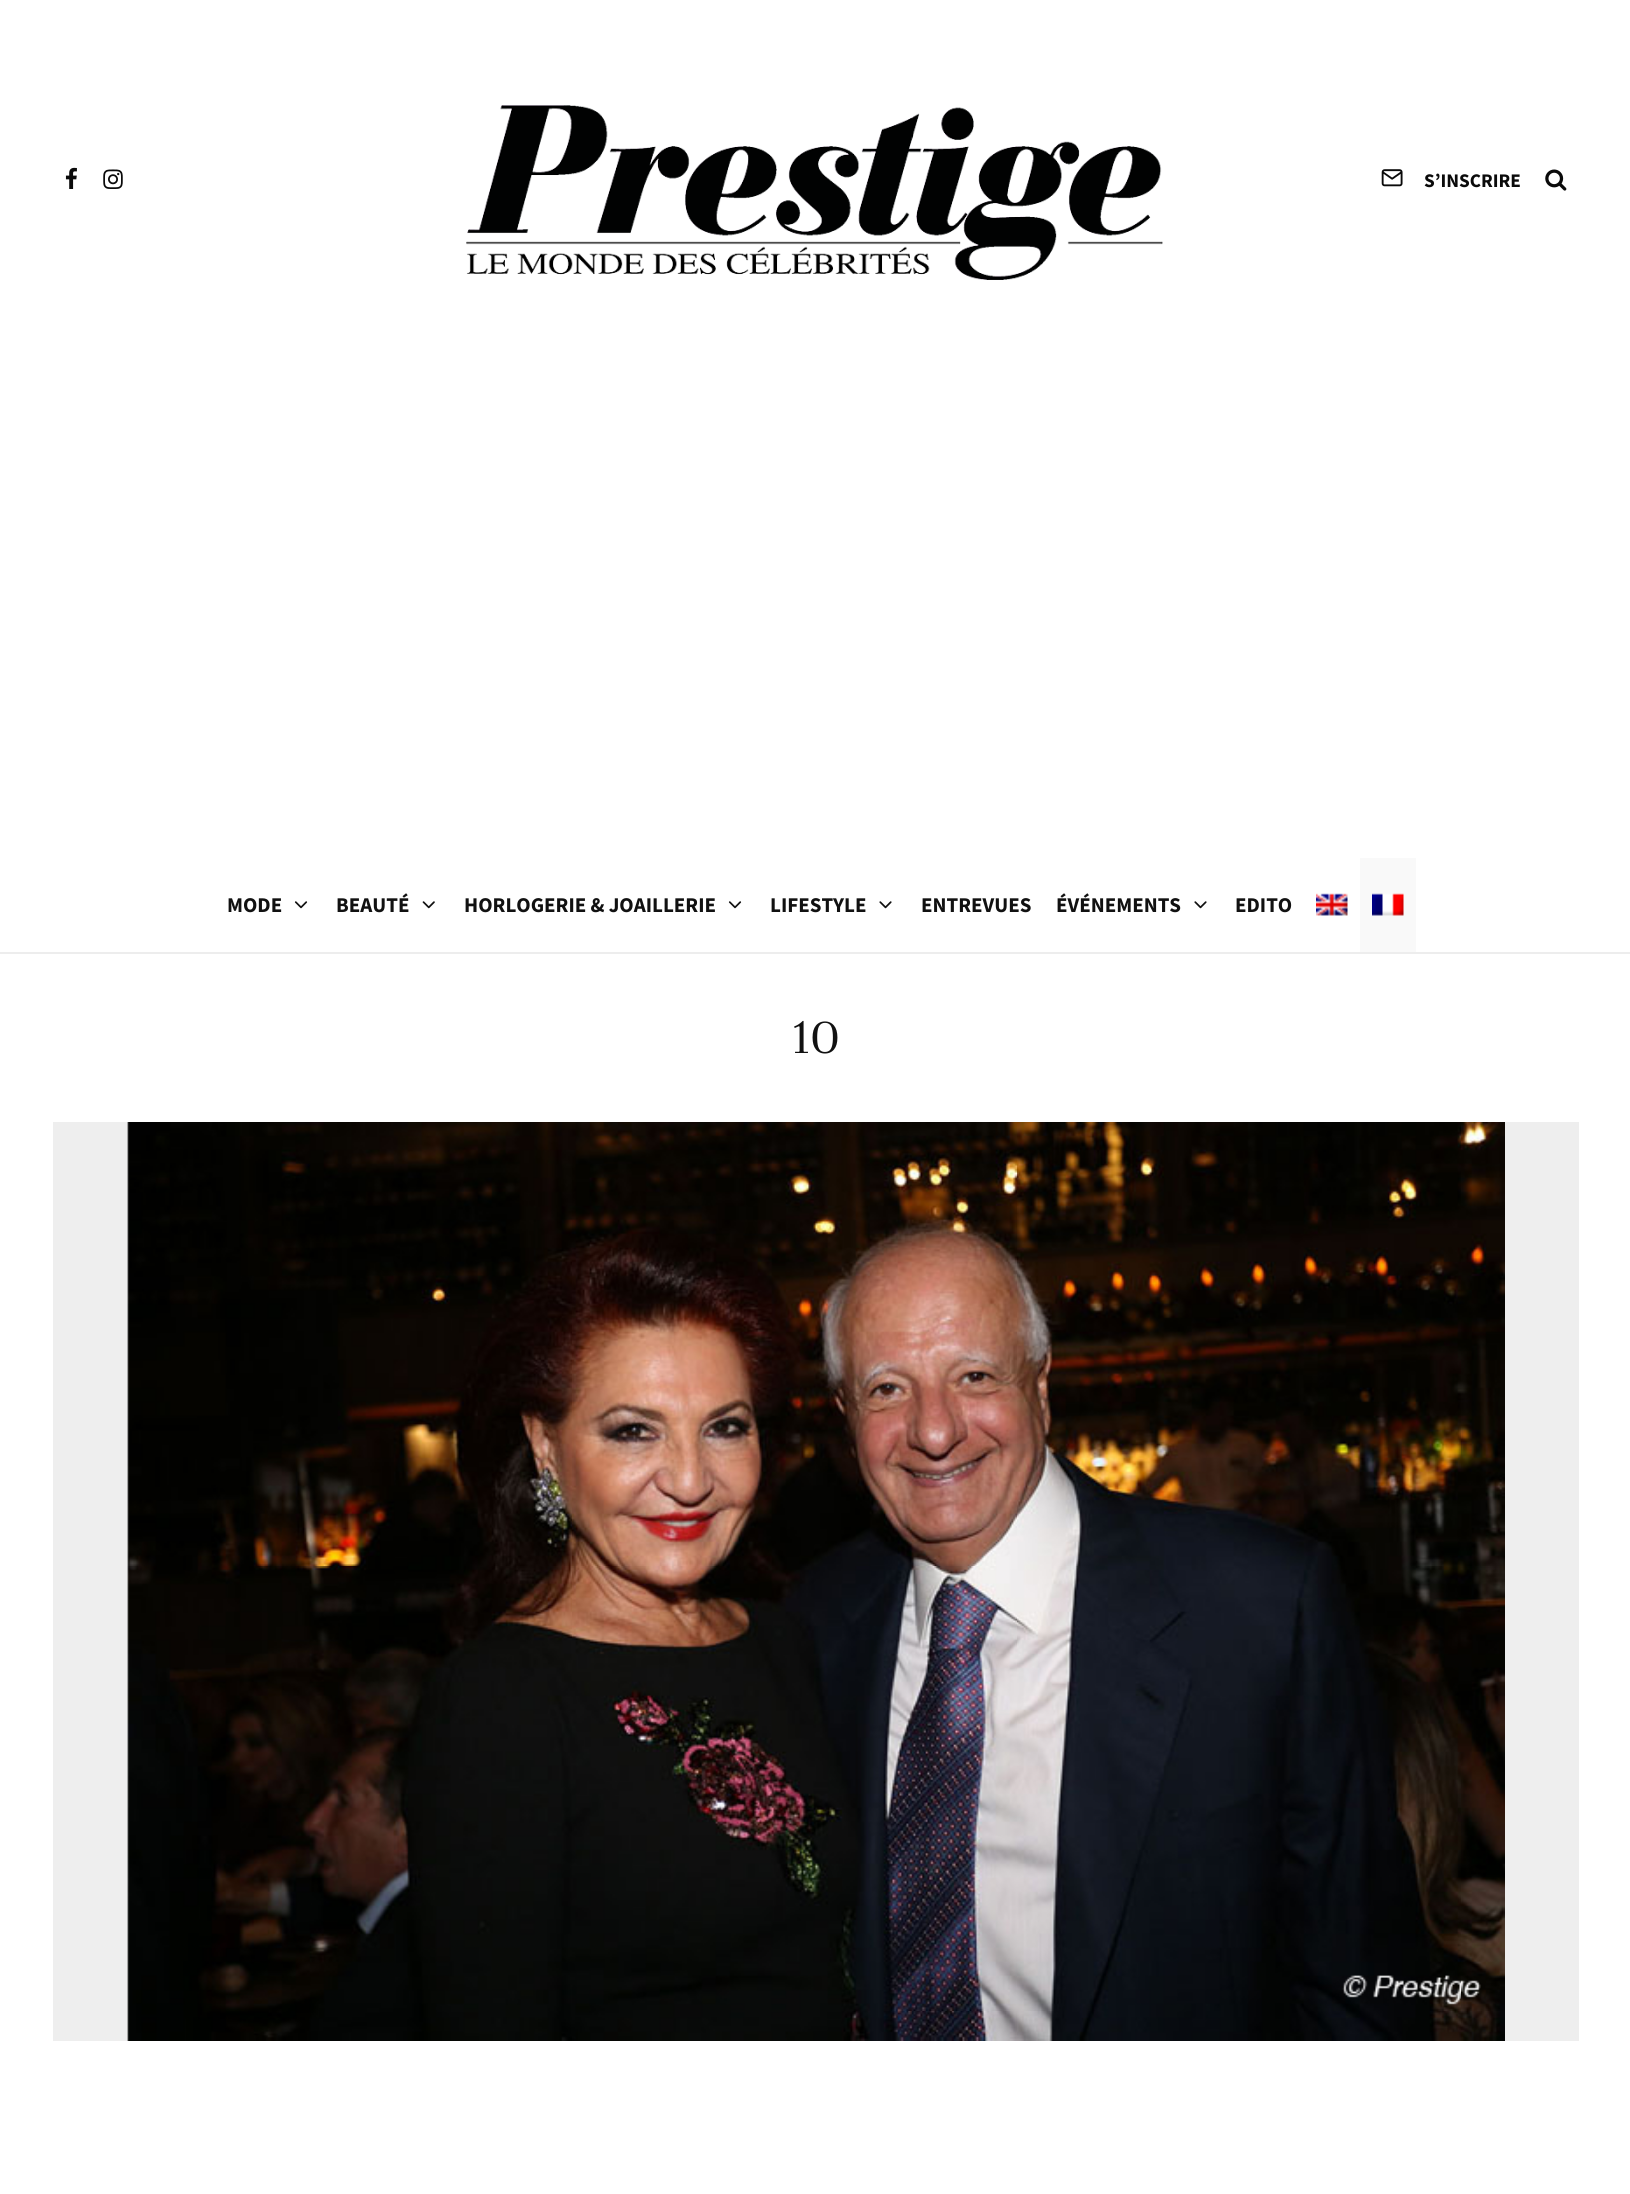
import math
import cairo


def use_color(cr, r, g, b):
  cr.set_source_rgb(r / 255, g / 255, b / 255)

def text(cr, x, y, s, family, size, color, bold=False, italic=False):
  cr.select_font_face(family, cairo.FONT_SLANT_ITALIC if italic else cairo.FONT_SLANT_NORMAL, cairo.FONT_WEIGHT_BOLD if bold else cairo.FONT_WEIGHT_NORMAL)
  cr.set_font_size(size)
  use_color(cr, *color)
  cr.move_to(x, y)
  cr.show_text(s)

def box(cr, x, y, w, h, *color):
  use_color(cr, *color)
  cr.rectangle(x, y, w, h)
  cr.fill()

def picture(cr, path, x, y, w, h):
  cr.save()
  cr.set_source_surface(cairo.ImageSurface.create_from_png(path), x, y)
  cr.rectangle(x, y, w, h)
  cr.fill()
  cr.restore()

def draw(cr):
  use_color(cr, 255, 255, 255)
  cr.paint()
  picture(cr, "img_01.png", 65, 167, 12, 22)
  picture(cr, "img_02.png", 103, 169, 20, 20)
  picture(cr, "img_03.png", 466, 105, 697, 175)
  picture(cr, "img_04.png", 1381, 169, 22, 18)
  picture(cr, "img_05.png", 1545, 169, 22, 22)
  box(cr, 0, 952, 1630, 2, 237, 237, 237)
  picture(cr, "img_06.png", 294, 901, 14, 8)
  picture(cr, "img_07.png", 422, 901, 13, 8)
  picture(cr, "img_06.png", 728, 901, 14, 8)
  picture(cr, "img_08.png", 879, 901, 13, 8)
  picture(cr, "img_08.png", 1194, 901, 13, 8)
  picture(cr, "img_09.png", 1316, 893, 32, 23)
  box(cr, 1360, 858, 56, 94, 249, 249, 249)
  picture(cr, "img_10.png", 1372, 893, 32, 23)
  box(cr, 53, 1122, 1526, 919, 238, 238, 238)
  picture(cr, "img_11.png", 127, 1122, 1378, 919)
  text(cr, 1424, 187, "S’INSCRIRE", "Source Sans Pro", 19.25, (10, 10, 10), bold=True)
  text(cr, 227, 912, "MODE", "Source Sans Pro", 21, (17, 17, 17), bold=True)
  text(cr, 336, 912, "BEAUTÉ", "Source Sans Pro", 21, (17, 17, 17), bold=True)
  text(cr, 464, 912, "HORLOGERIE & JOAILLERIE", "Source Sans Pro", 21, (17, 17, 17), bold=True)
  text(cr, 770, 912, "LIFESTYLE", "Source Sans Pro", 21, (17, 17, 17), bold=True)
  text(cr, 921, 912, "ENTREVUES", "Source Sans Pro", 21, (17, 17, 17), bold=True)
  text(cr, 1056, 912, "ÉVÉNEMENTS", "Source Sans Pro", 21, (17, 17, 17), bold=True)
  text(cr, 1235, 912, "EDITO", "Source Sans Pro", 21, (17, 17, 17), bold=True)
  text(cr, 791, 1053, "10", "Unna", 52, (17, 17, 17))


surface = cairo.ImageSurface(cairo.FORMAT_RGB24, 1630, 2194)
cr = cairo.Context(surface)
options = cairo.FontOptions()
options.set_hint_metrics(cairo.HINT_METRICS_OFF)
options.set_hint_style(cairo.HINT_STYLE_NONE)
cr.set_font_options(options)
cr.set_miter_limit(4)
draw(cr)
surface.write_to_png("out.png")
